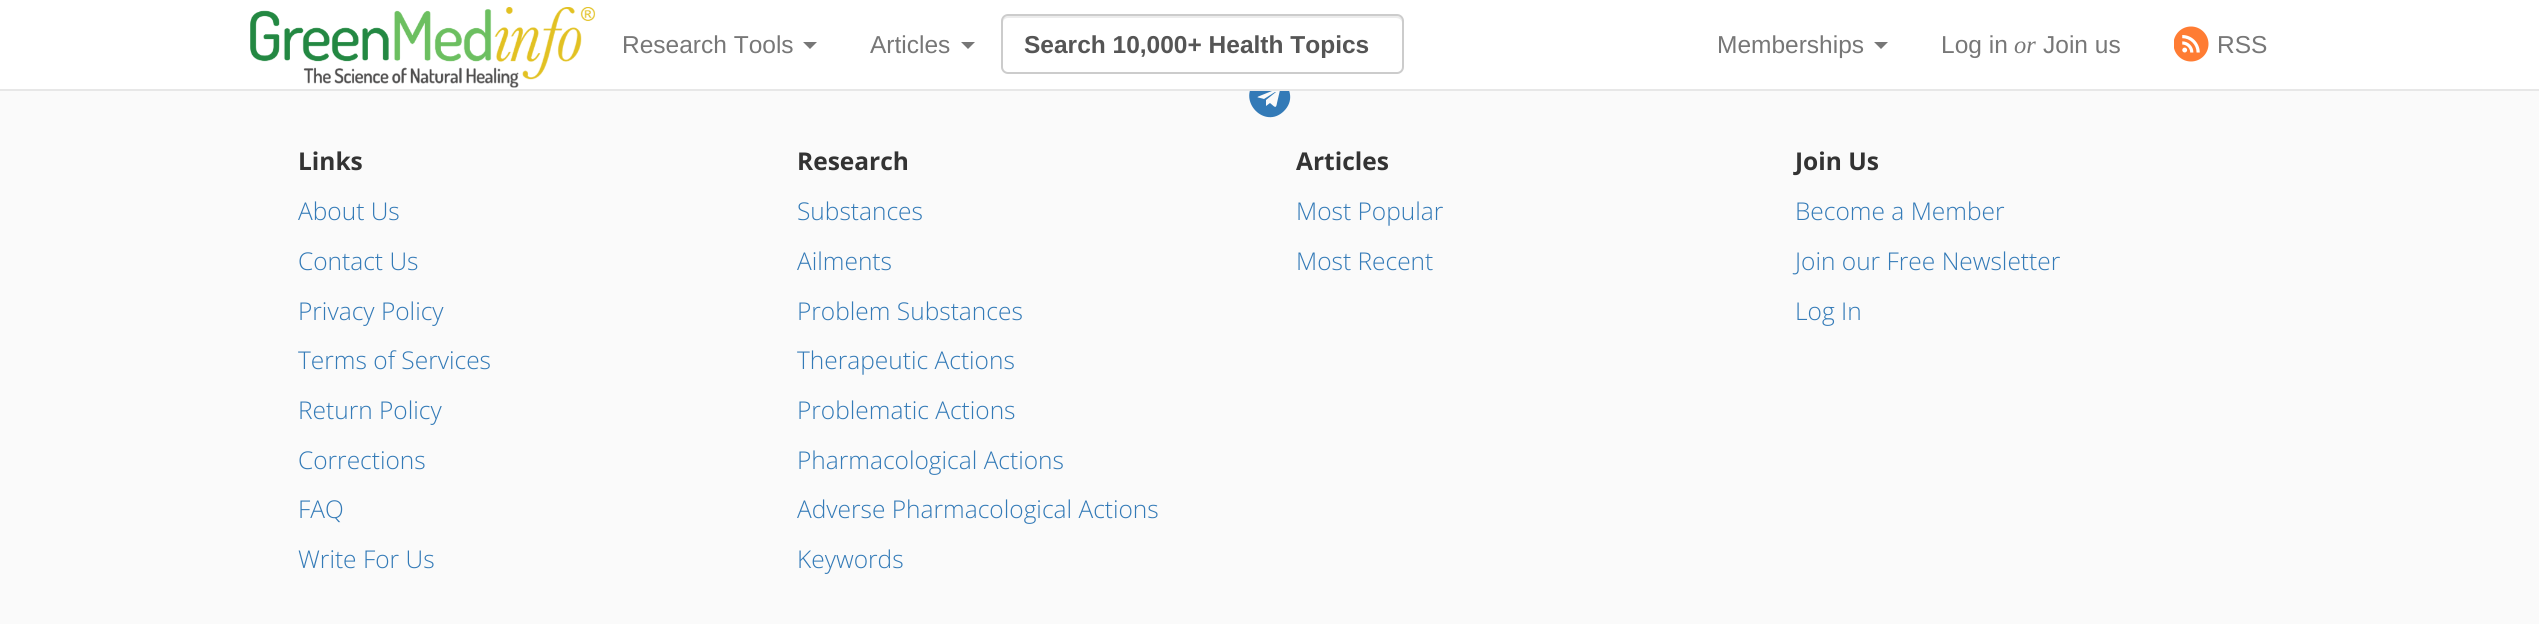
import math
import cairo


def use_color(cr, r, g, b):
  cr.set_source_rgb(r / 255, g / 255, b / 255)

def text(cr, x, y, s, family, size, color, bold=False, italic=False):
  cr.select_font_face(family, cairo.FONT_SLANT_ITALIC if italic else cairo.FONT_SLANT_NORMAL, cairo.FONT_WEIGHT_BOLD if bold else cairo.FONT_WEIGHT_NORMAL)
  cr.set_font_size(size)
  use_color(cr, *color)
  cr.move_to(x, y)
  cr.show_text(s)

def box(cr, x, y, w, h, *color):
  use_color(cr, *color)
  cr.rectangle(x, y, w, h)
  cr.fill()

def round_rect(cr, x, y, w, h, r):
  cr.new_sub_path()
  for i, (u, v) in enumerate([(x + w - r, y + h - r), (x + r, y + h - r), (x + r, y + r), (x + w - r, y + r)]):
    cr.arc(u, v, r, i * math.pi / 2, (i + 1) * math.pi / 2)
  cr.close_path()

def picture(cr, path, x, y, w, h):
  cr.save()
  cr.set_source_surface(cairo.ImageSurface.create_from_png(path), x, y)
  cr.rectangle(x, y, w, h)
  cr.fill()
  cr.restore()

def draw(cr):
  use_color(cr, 250, 250, 250)
  cr.paint()
  use_color(cr, 51, 122, 183)
  cr.new_path()
  cr.move_to(1255, 82)
  cr.curve_to(1274, 63, 1303, 92, 1284, 111)
  cr.curve_to(1265, 130, 1237, 101, 1255, 82)
  cr.close_path()
  cr.move_to(1280, 90)
  cr.curve_to(1281, 86, 1273, 90, 1272, 91)
  cr.line_to(1262, 95)
  cr.curve_to(1254, 98, 1258, 97, 1264, 99)
  cr.line_to(1275, 92)
  cr.line_to(1276, 92)
  cr.line_to(1266, 100)
  cr.line_to(1266, 106)
  cr.line_to(1270, 103)
  cr.curve_to(1274, 106, 1276, 110, 1277, 103)
  cr.close_path()
  cr.fill()
  box(cr, 0, 0, 2539, 89, 255, 255, 255)
  box(cr, 0, 89, 2539, 2, 231, 231, 231)
  picture(cr, "img_01.png", 250, 7, 346, 81)
  use_color(cr, 119, 119, 119)
  cr.new_path()
  cr.move_to(803, 42)
  cr.line_to(817, 42)
  cr.line_to(810, 49)
  cr.close_path()
  cr.fill()
  cr.new_path()
  cr.move_to(961, 42)
  cr.line_to(975, 42)
  cr.line_to(968, 49)
  cr.close_path()
  cr.fill()
  use_color(cr, 236, 236, 236)
  cr.new_path()
  cr.move_to(1008, 18)
  cr.line_to(1396, 18)
  cr.curve_to(1399, 18, 1402, 20, 1402, 23)
  cr.line_to(1402, 21)
  cr.curve_to(1402, 18, 1400, 16, 1397, 16)
  cr.line_to(1008, 16)
  cr.curve_to(1005, 16, 1003, 18, 1003, 21)
  cr.line_to(1003, 23)
  cr.curve_to(1003, 20, 1005, 18, 1008, 18)
  cr.close_path()
  cr.fill()
  round_rect(cr, 1002, 15, 401, 58, 6)
  use_color(cr, 204, 204, 204)
  cr.stroke()
  use_color(cr, 119, 119, 119)
  cr.new_path()
  cr.move_to(1874, 42)
  cr.line_to(1888, 42)
  cr.line_to(1881, 49)
  cr.close_path()
  cr.fill()
  picture(cr, "img_02.png", 2174, 26, 35, 36)
  text(cr, 622, 53, "Research Tools", "Liberation Sans", 24.5, (119, 119, 119))
  text(cr, 870, 53, "Articles", "Liberation Sans", 24.5, (119, 119, 119))
  cr.save()
  cr.rectangle(1024, 30, 357, 28)
  cr.clip()
  text(cr, 1024, 53, "Search 10,000+ Health Topics", "Liberation Sans", 24.5, (85, 85, 85), bold=True)
  cr.restore()
  text(cr, 1717, 53, "Memberships", "Liberation Sans", 24.5, (119, 119, 119))
  text(cr, 1941, 53, "Log in", "Liberation Sans", 24.5, (119, 119, 119))
  text(cr, 2014, 53, "or", "Liberation Serif", 24.5, (119, 119, 119), italic=True)
  text(cr, 2043, 53, "Join us", "Liberation Sans", 24.5, (119, 119, 119))
  text(cr, 2217, 53, "RSS", "Liberation Sans", 24.5, (119, 119, 119))
  text(cr, 298, 170, "Links", "Open Sans", 24.5, (51, 51, 51), bold=True)
  text(cr, 298, 220, "About Us", "Open Sans Light", 24.5, (51, 122, 183))
  text(cr, 298, 270, "Contact Us", "Open Sans Light", 24.5, (51, 122, 183))
  text(cr, 298, 320, "Privacy Policy", "Open Sans Light", 24.5, (51, 122, 183))
  text(cr, 298, 369, "Terms of Services", "Open Sans Light", 24.5, (51, 122, 183))
  text(cr, 298, 419, "Return Policy", "Open Sans Light", 24.5, (51, 122, 183))
  text(cr, 298, 469, "Corrections", "Open Sans Light", 24.5, (51, 122, 183))
  text(cr, 298, 518, "FAQ", "Open Sans Light", 24.5, (51, 122, 183))
  text(cr, 298, 568, "Write For Us", "Open Sans Light", 24.5, (51, 122, 183))
  text(cr, 797, 170, "Research", "Open Sans", 24.5, (51, 51, 51), bold=True)
  text(cr, 797, 220, "Substances", "Open Sans Light", 24.5, (51, 122, 183))
  text(cr, 797, 270, "Ailments", "Open Sans Light", 24.5, (51, 122, 183))
  text(cr, 797, 320, "Problem Substances", "Open Sans Light", 24.5, (51, 122, 183))
  text(cr, 797, 369, "Therapeutic Actions", "Open Sans Light", 24.5, (51, 122, 183))
  text(cr, 797, 419, "Problematic Actions", "Open Sans Light", 24.5, (51, 122, 183))
  text(cr, 797, 469, "Pharmacological Actions", "Open Sans Light", 24.5, (51, 122, 183))
  text(cr, 797, 518, "Adverse Pharmacological Actions", "Open Sans Light", 24.5, (51, 122, 183))
  text(cr, 797, 568, "Keywords", "Open Sans Light", 24.5, (51, 122, 183))
  text(cr, 1296, 170, "Articles", "Open Sans", 24.5, (51, 51, 51), bold=True)
  text(cr, 1296, 220, "Most Popular", "Open Sans Light", 24.5, (51, 122, 183))
  text(cr, 1296, 270, "Most Recent", "Open Sans Light", 24.5, (51, 122, 183))
  text(cr, 1795, 170, "Join Us", "Open Sans", 24.5, (51, 51, 51), bold=True)
  text(cr, 1795, 220, "Become a Member", "Open Sans Light", 24.5, (51, 122, 183))
  text(cr, 1795, 270, "Join our Free Newsletter", "Open Sans Light", 24.5, (51, 122, 183))
  text(cr, 1795, 320, "Log In", "Open Sans Light", 24.5, (51, 122, 183))


surface = cairo.ImageSurface(cairo.FORMAT_RGB24, 2539, 624)
cr = cairo.Context(surface)
options = cairo.FontOptions()
options.set_hint_metrics(cairo.HINT_METRICS_OFF)
options.set_hint_style(cairo.HINT_STYLE_NONE)
cr.set_font_options(options)
cr.set_miter_limit(4)
draw(cr)
surface.write_to_png("out.png")
